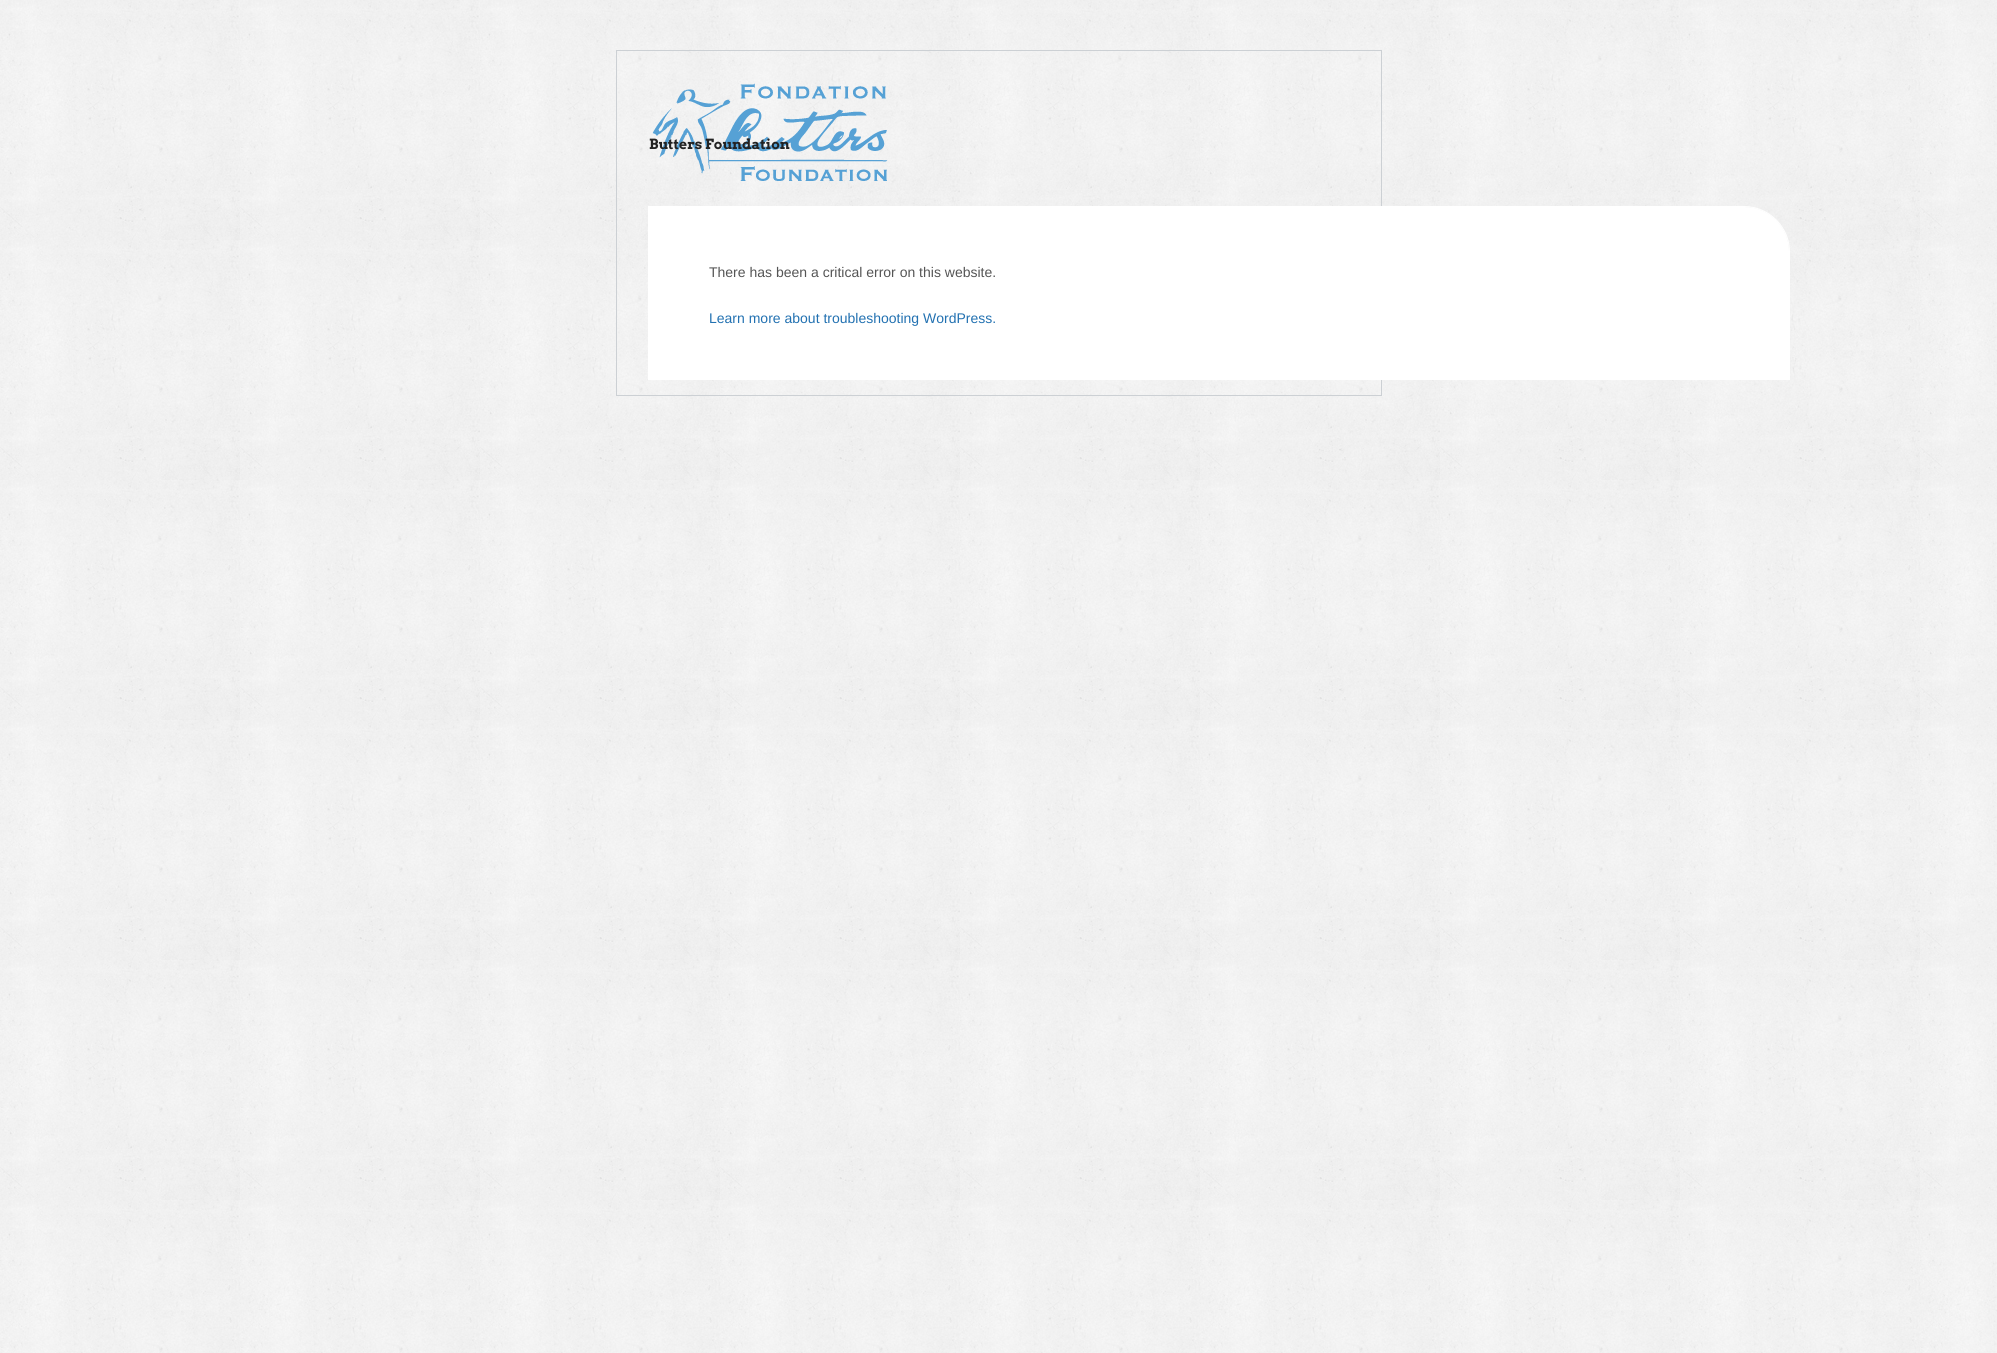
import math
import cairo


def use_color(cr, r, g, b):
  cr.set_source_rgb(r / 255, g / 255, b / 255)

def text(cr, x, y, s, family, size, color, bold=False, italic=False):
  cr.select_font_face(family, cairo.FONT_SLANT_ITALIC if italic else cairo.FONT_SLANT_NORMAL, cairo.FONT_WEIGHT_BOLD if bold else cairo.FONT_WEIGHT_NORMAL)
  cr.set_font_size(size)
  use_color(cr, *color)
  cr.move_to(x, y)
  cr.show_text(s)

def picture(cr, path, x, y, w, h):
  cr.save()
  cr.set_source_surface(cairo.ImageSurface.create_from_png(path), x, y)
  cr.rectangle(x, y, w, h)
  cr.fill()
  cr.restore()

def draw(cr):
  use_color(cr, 255, 255, 255)
  cr.paint()
  picture(cr, "img_01.png", 0, 0, 1997, 1353)
  cr.rectangle(616.5, 50.5, 765, 345)
  use_color(cr, 204, 208, 212)
  cr.set_line_width(1)
  cr.stroke()
  picture(cr, "img_02.png", 652, 83, 236, 98)
  cr.new_path()
  cr.move_to(648.5, 206.5)
  cr.line_to(1744, 206.5)
  cr.curve_to(1769, 206.5, 1789.5, 227, 1789.5, 252)
  cr.line_to(1789.5, 379.5)
  cr.line_to(648.5, 379.5)
  cr.close_path()
  use_color(cr, 255, 255, 255)
  cr.stroke()
  cr.new_path()
  cr.move_to(649, 207)
  cr.line_to(1744, 207)
  cr.curve_to(1769, 207, 1789, 227, 1789, 252)
  cr.line_to(1789, 379)
  cr.line_to(649, 379)
  cr.close_path()
  cr.fill()
  text(cr, 649, 149, "Butters Foundation", "Arvo", 14, (34, 34, 34), bold=True)
  text(cr, 709, 277, "There has been a critical error on this website.", "Liberation Sans", 14, (85, 85, 85))
  text(cr, 709, 323, "Learn more about troubleshooting WordPress.", "Liberation Sans", 14, (34, 113, 177))


surface = cairo.ImageSurface(cairo.FORMAT_RGB24, 1997, 1353)
cr = cairo.Context(surface)
options = cairo.FontOptions()
options.set_hint_metrics(cairo.HINT_METRICS_OFF)
options.set_hint_style(cairo.HINT_STYLE_NONE)
cr.set_font_options(options)
cr.set_miter_limit(4)
draw(cr)
surface.write_to_png("out.png")
